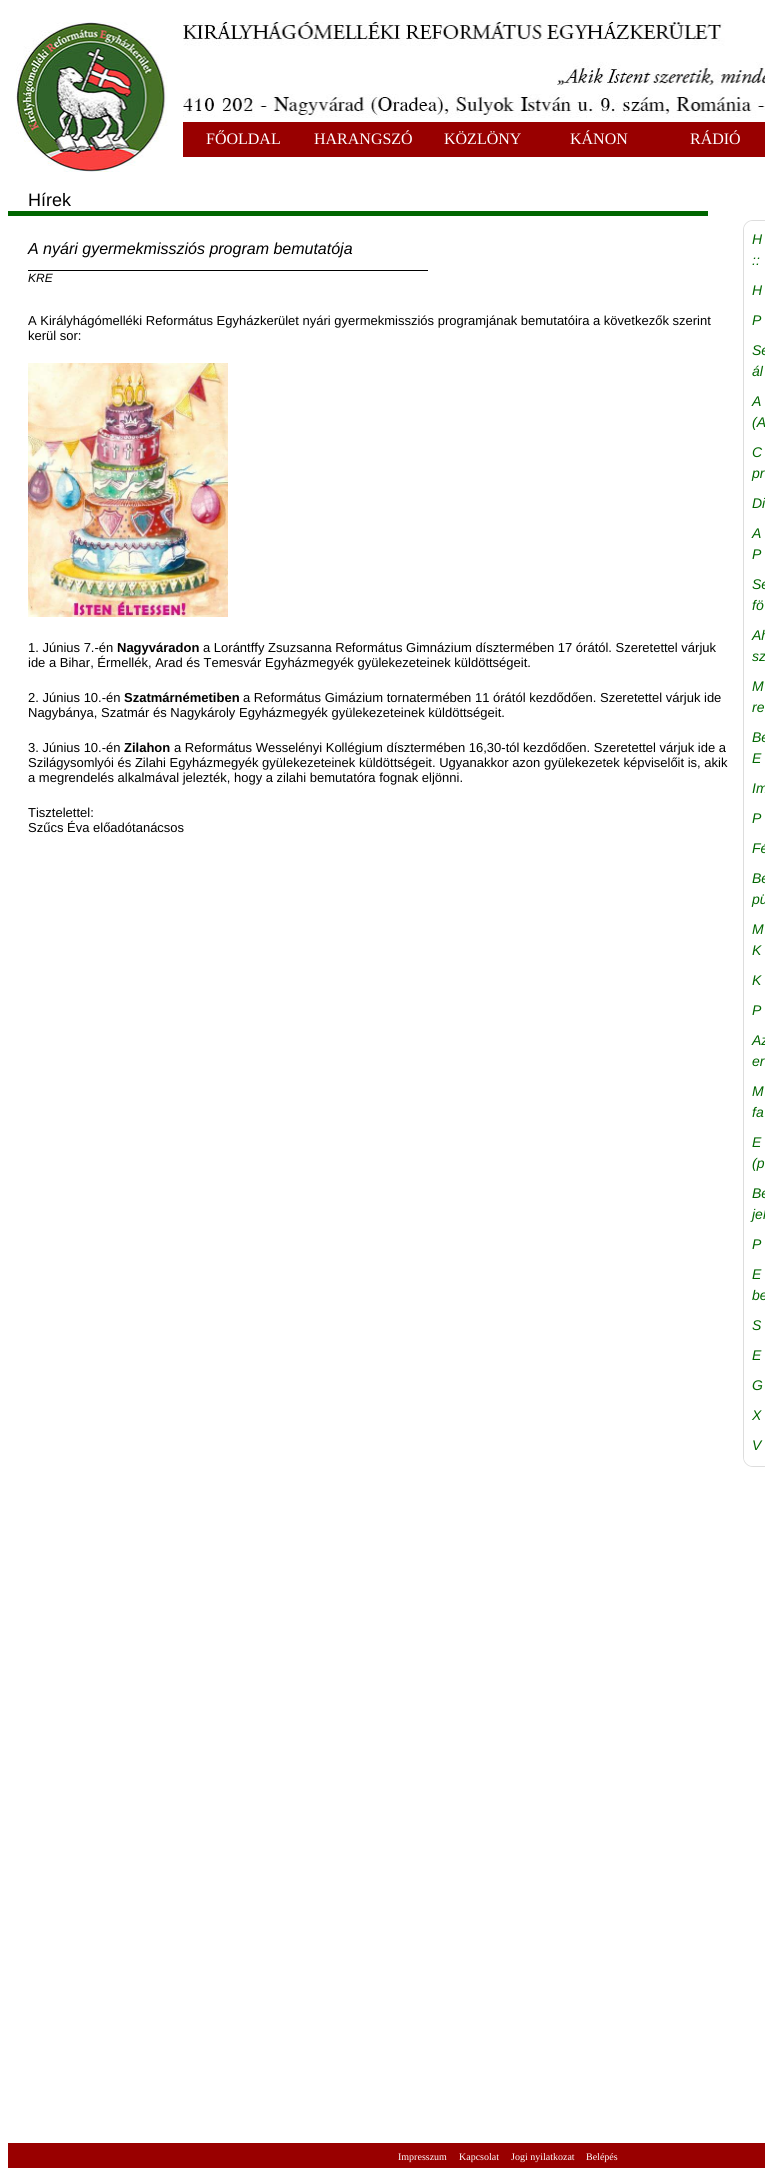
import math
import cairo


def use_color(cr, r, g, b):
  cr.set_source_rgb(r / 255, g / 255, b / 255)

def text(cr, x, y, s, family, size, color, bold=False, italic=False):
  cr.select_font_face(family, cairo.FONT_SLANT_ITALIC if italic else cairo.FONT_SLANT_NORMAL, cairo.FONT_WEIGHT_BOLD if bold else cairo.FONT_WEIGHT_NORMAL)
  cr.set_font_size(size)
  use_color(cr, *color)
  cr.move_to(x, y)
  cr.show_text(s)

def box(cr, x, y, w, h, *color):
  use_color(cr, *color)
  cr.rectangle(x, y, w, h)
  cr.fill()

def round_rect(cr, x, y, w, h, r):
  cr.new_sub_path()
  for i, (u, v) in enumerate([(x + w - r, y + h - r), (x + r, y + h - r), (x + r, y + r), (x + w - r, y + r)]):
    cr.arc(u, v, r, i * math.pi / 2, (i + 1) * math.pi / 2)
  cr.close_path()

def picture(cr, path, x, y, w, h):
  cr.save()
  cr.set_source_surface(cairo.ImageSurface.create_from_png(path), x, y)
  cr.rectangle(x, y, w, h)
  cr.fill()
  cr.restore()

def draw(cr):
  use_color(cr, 255, 255, 255)
  cr.paint()
  picture(cr, "img_01.png", 16, 22, 749, 150)
  box(cr, 183, 122, 582, 35, 153, 0, 0)
  box(cr, 8, 211, 700, 5, 0, 102, 0)
  round_rect(cr, 743.5, 220.5, 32, 1246, 9.5)
  use_color(cr, 221, 221, 221)
  cr.set_line_width(1)
  cr.stroke()
  use_color(cr, 255, 255, 255)
  cr.new_path()
  cr.move_to(753, 221)
  cr.line_to(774, 221)
  cr.line_to(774, 1466)
  cr.line_to(753, 1466)
  cr.curve_to(748, 1466, 744, 1462, 744, 1457)
  cr.line_to(744, 230)
  cr.curve_to(744, 225, 748, 221, 753, 221)
  cr.close_path()
  cr.fill()
  box(cr, 28, 270, 400, 1, 0, 0, 0)
  picture(cr, "img_02.png", 28, 363, 200, 254)
  box(cr, 8, 2143, 757, 25, 153, 0, 0)
  text(cr, 206, 144, "FŐOLDAL", "Liberation Serif", 16, (255, 255, 255))
  text(cr, 314, 144, "HARANGSZÓ", "Liberation Serif", 16, (255, 255, 255))
  text(cr, 444, 144, "KÖZLÖNY", "Liberation Serif", 16, (255, 255, 255))
  text(cr, 570, 144, "KÁNON", "Liberation Serif", 16, (255, 255, 255))
  text(cr, 690, 144, "RÁDIÓ", "Liberation Serif", 16, (255, 255, 255))
  text(cr, 28, 206, "Hírek", "Liberation Sans", 18, (0, 0, 0))
  text(cr, 28, 254, "A nyári gyermekmissziós program bemutatója", "Liberation Sans", 16, (0, 0, 0), italic=True)
  text(cr, 752, 244, "H", "Liberation Sans", 14, (0, 102, 0), italic=True)
  text(cr, 752, 265, "::", "Liberation Sans", 14, (0, 102, 0), italic=True)
  text(cr, 752, 295, "H", "Liberation Sans", 14, (0, 102, 0), italic=True)
  text(cr, 752, 325, "P", "Liberation Sans", 14, (0, 102, 0), italic=True)
  text(cr, 752, 355, "Se", "Liberation Sans", 14, (0, 102, 0), italic=True)
  text(cr, 752, 376, "ál", "Liberation Sans", 14, (0, 102, 0), italic=True)
  text(cr, 752, 406, "A", "Liberation Sans", 14, (0, 102, 0), italic=True)
  text(cr, 752, 427, "(A", "Liberation Sans", 14, (0, 102, 0), italic=True)
  text(cr, 752, 457, "C", "Liberation Sans", 14, (0, 102, 0), italic=True)
  text(cr, 752, 478, "pr", "Liberation Sans", 14, (0, 102, 0), italic=True)
  text(cr, 752, 508, "Di", "Liberation Sans", 14, (0, 102, 0), italic=True)
  text(cr, 752, 538, "A", "Liberation Sans", 14, (0, 102, 0), italic=True)
  text(cr, 752, 559, "P", "Liberation Sans", 14, (0, 102, 0), italic=True)
  text(cr, 752, 589, "Se", "Liberation Sans", 14, (0, 102, 0), italic=True)
  text(cr, 752, 610, "fö", "Liberation Sans", 14, (0, 102, 0), italic=True)
  text(cr, 752, 640, "Ah", "Liberation Sans", 14, (0, 102, 0), italic=True)
  text(cr, 752, 661, "sz", "Liberation Sans", 14, (0, 102, 0), italic=True)
  text(cr, 752, 691, "M", "Liberation Sans", 14, (0, 102, 0), italic=True)
  text(cr, 752, 712, "re", "Liberation Sans", 14, (0, 102, 0), italic=True)
  text(cr, 752, 742, "Be", "Liberation Sans", 14, (0, 102, 0), italic=True)
  text(cr, 752, 763, "E", "Liberation Sans", 14, (0, 102, 0), italic=True)
  text(cr, 752, 793, "Im", "Liberation Sans", 14, (0, 102, 0), italic=True)
  text(cr, 752, 823, "P", "Liberation Sans", 14, (0, 102, 0), italic=True)
  text(cr, 752, 853, "Fé", "Liberation Sans", 14, (0, 102, 0), italic=True)
  text(cr, 752, 883, "Be", "Liberation Sans", 14, (0, 102, 0), italic=True)
  text(cr, 752, 904, "pü", "Liberation Sans", 14, (0, 102, 0), italic=True)
  text(cr, 752, 934, "M", "Liberation Sans", 14, (0, 102, 0), italic=True)
  text(cr, 752, 955, "K", "Liberation Sans", 14, (0, 102, 0), italic=True)
  text(cr, 752, 985, "K", "Liberation Sans", 14, (0, 102, 0), italic=True)
  text(cr, 752, 1015, "P", "Liberation Sans", 14, (0, 102, 0), italic=True)
  text(cr, 752, 1045, "Az", "Liberation Sans", 14, (0, 102, 0), italic=True)
  text(cr, 752, 1066, "er", "Liberation Sans", 14, (0, 102, 0), italic=True)
  text(cr, 752, 1096, "M", "Liberation Sans", 14, (0, 102, 0), italic=True)
  text(cr, 752, 1117, "fa", "Liberation Sans", 14, (0, 102, 0), italic=True)
  text(cr, 752, 1147, "E", "Liberation Sans", 14, (0, 102, 0), italic=True)
  text(cr, 752, 1168, "(p", "Liberation Sans", 14, (0, 102, 0), italic=True)
  text(cr, 752, 1198, "Be", "Liberation Sans", 14, (0, 102, 0), italic=True)
  text(cr, 752, 1219, "jel", "Liberation Sans", 14, (0, 102, 0), italic=True)
  text(cr, 752, 1249, "P", "Liberation Sans", 14, (0, 102, 0), italic=True)
  text(cr, 752, 1279, "E", "Liberation Sans", 14, (0, 102, 0), italic=True)
  text(cr, 752, 1300, "be", "Liberation Sans", 14, (0, 102, 0), italic=True)
  text(cr, 752, 1330, "S", "Liberation Sans", 14, (0, 102, 0), italic=True)
  text(cr, 752, 1360, "E", "Liberation Sans", 14, (0, 102, 0), italic=True)
  text(cr, 752, 1390, "G", "Liberation Sans", 14, (0, 102, 0), italic=True)
  text(cr, 752, 1420, "X", "Liberation Sans", 14, (0, 102, 0), italic=True)
  text(cr, 752, 1450, "V", "Liberation Sans", 14, (0, 102, 0), italic=True)
  text(cr, 28, 282, "KRE", "Liberation Sans", 12, (0, 0, 0), italic=True)
  text(cr, 28, 325, "A Királyhágómelléki Református Egyházkerület nyári gyermekmissziós programjának bemutatóira a következők szerint", "Liberation Sans", 13, (0, 0, 0))
  text(cr, 28, 340, "kerül sor:", "Liberation Sans", 13, (0, 0, 0))
  text(cr, 28, 652, "1. Június 7.-én", "Liberation Sans", 13, (0, 0, 0))
  text(cr, 117, 652, "Nagyváradon", "Liberation Sans", 13, (0, 0, 0), bold=True)
  text(cr, 203, 652, "a Lorántffy Zsuzsanna Református Gimnázium dísztermében 17 órától. Szeretettel várjuk", "Liberation Sans", 13, (0, 0, 0))
  text(cr, 28, 667, "ide a Bihar, Érmellék, Arad és Temesvár Egyházmegyék gyülekezeteinek küldöttségeit.", "Liberation Sans", 13, (0, 0, 0))
  text(cr, 28, 702, "2. Június 10.-én", "Liberation Sans", 13, (0, 0, 0))
  text(cr, 124, 702, "Szatmárnémetiben", "Liberation Sans", 13, (0, 0, 0), bold=True)
  text(cr, 243, 702, "a Református Gimázium tornatermében 11 órától kezdődően. Szeretettel várjuk ide", "Liberation Sans", 13, (0, 0, 0))
  text(cr, 28, 717, "Nagybánya, Szatmár és Nagykároly Egyházmegyék gyülekezeteinek küldöttségeit.", "Liberation Sans", 13, (0, 0, 0))
  text(cr, 28, 752, "3. Június 10.-én", "Liberation Sans", 13, (0, 0, 0))
  text(cr, 124, 752, "Zilahon", "Liberation Sans", 13, (0, 0, 0), bold=True)
  text(cr, 174, 752, "a Református Wesselényi Kollégium dísztermében 16,30-tól kezdődően. Szeretettel várjuk ide a", "Liberation Sans", 13, (0, 0, 0))
  text(cr, 28, 767, "Szilágysomlyói és Zilahi Egyházmegyék gyülekezeteinek küldöttségeit. Ugyanakkor azon gyülekezetek képviselőit is, akik", "Liberation Sans", 13, (0, 0, 0))
  text(cr, 28, 782, "a megrendelés alkalmával jelezték, hogy a zilahi bemutatóra fognak eljönni.", "Liberation Sans", 13, (0, 0, 0))
  text(cr, 28, 817, "Tisztelettel:", "Liberation Sans", 13, (0, 0, 0))
  text(cr, 28, 832, "Szűcs Éva előadótanácsos", "Liberation Sans", 13, (0, 0, 0))
  text(cr, 398, 2160, "Impresszum", "Liberation Serif", 10, (255, 255, 255))
  text(cr, 459, 2160, "Kapcsolat", "Liberation Serif", 10, (255, 255, 255))
  text(cr, 511, 2160, "Jogi nyilatkozat", "Liberation Serif", 10, (255, 255, 255))
  text(cr, 586, 2160, "Belépés", "Liberation Serif", 10, (255, 255, 255))


surface = cairo.ImageSurface(cairo.FORMAT_RGB24, 765, 2168)
cr = cairo.Context(surface)
options = cairo.FontOptions()
options.set_hint_metrics(cairo.HINT_METRICS_OFF)
options.set_hint_style(cairo.HINT_STYLE_NONE)
cr.set_font_options(options)
cr.set_miter_limit(4)
draw(cr)
surface.write_to_png("out.png")
